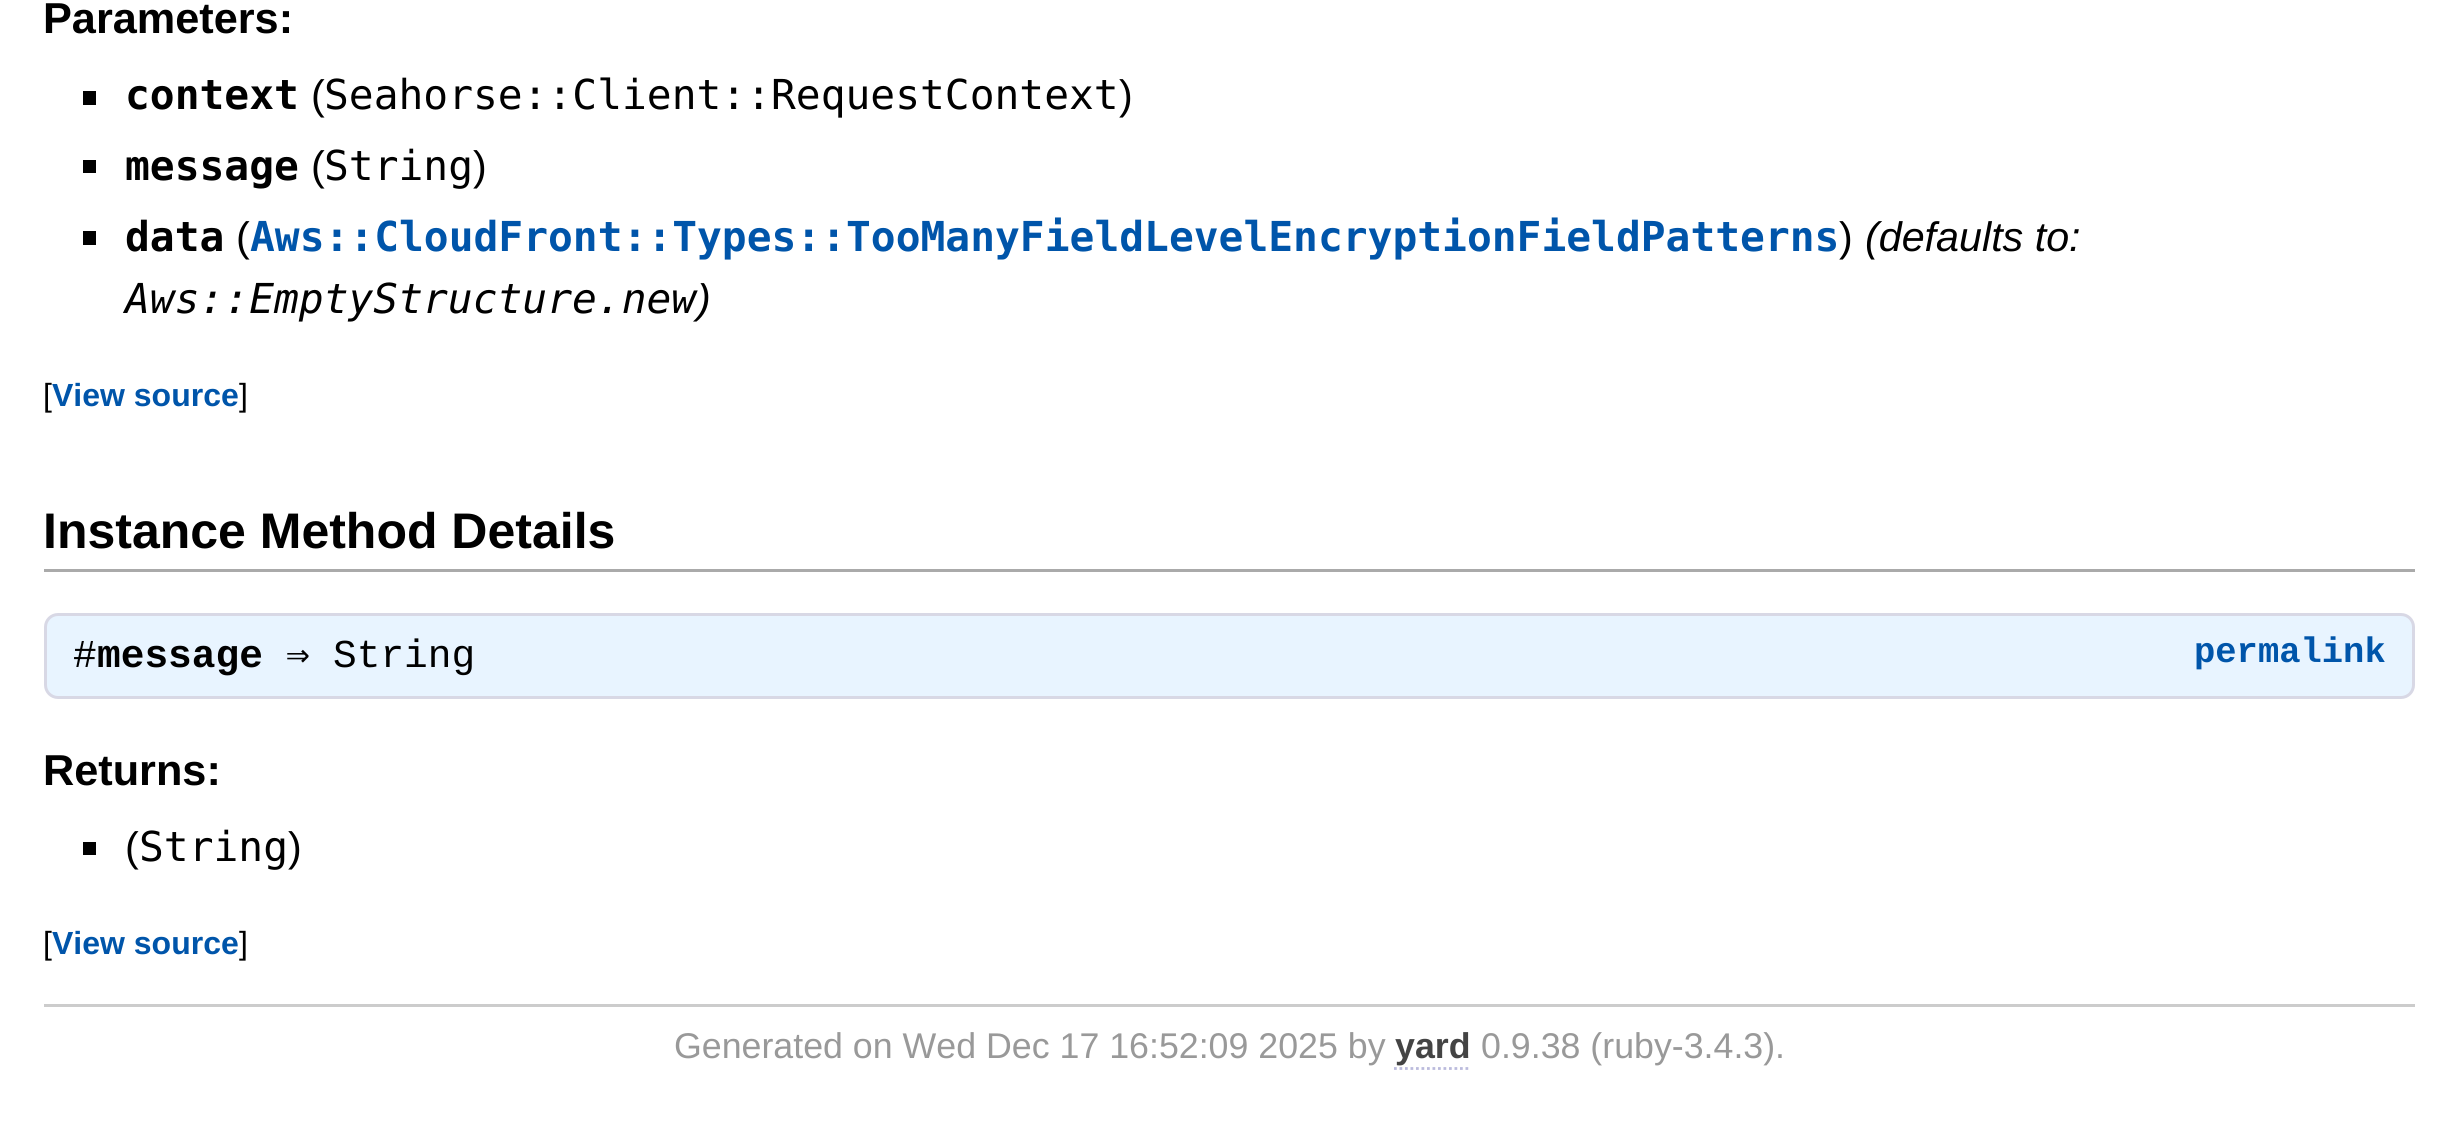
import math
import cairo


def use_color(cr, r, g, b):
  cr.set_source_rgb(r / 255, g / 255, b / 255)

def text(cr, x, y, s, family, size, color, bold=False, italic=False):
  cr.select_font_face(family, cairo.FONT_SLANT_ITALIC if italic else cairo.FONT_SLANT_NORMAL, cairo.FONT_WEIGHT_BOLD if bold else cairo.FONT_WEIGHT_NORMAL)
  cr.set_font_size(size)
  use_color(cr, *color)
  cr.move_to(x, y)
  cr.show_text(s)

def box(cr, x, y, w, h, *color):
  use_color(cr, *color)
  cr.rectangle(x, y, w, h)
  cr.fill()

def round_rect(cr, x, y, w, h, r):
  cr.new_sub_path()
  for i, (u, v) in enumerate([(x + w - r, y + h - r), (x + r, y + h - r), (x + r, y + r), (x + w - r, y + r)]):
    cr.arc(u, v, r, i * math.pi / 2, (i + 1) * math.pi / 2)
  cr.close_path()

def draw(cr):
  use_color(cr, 255, 255, 255)
  cr.paint()
  box(cr, 83, 91, 13, 14, 0, 0, 0)
  box(cr, 83, 160, 13, 13, 0, 0, 0)
  box(cr, 83, 231, 13, 14, 0, 0, 0)
  box(cr, 44, 569, 2371, 3, 170, 170, 170)
  use_color(cr, 232, 244, 255)
  round_rect(cr, 45.5, 614.5, 2368, 83, 12.5)
  cr.fill_preserve()
  use_color(cr, 216, 216, 229)
  cr.set_line_width(3)
  cr.stroke()
  box(cr, 83, 842, 13, 13, 0, 0, 0)
  box(cr, 44, 1004, 2371, 3, 204, 204, 204)
  cr.new_path()
  cr.move_to(1394, 1068.5)
  cr.line_to(1471, 1068.5)
  use_color(cr, 187, 187, 221)
  cr.set_line_width(2.8)
  cr.set_dash([2.75, 2.75])
  cr.stroke()
  text(cr, 43, 33, "Parameters:", "Liberation Sans", 43.25, (0, 0, 0), bold=True)
  text(cr, 125, 109, "context", "DejaVu Sans Mono", 41.25, (0, 0, 0), bold=True)
  text(cr, 311, 109, "(", "Liberation Sans", 41.25, (0, 0, 0))
  text(cr, 324, 109, "Seahorse::Client::RequestContext", "DejaVu Sans Mono", 41.25, (0, 0, 0))
  text(cr, 1119, 109, ")", "Liberation Sans", 41.25, (0, 0, 0))
  text(cr, 125, 180, "message", "DejaVu Sans Mono", 41.25, (0, 0, 0), bold=True)
  text(cr, 311, 180, "(", "Liberation Sans", 41.25, (0, 0, 0))
  text(cr, 324, 180, "String", "DejaVu Sans Mono", 41.25, (0, 0, 0))
  text(cr, 473, 180, ")", "Liberation Sans", 41.25, (0, 0, 0))
  text(cr, 125, 251, "data", "DejaVu Sans Mono", 41.25, (0, 0, 0), bold=True)
  text(cr, 236, 251, "(", "Liberation Sans", 41.25, (0, 0, 0))
  text(cr, 250, 251, "Aws::CloudFront::Types::TooManyFieldLevelEncryptionFieldPatterns", "DejaVu Sans Mono", 41.25, (0, 85, 170), bold=True)
  text(cr, 1839, 251, ")", "Liberation Sans", 41.25, (0, 0, 0))
  text(cr, 1865, 251, "(defaults to:", "Liberation Sans", 41.25, (0, 0, 0), italic=True)
  text(cr, 125, 313, "Aws::EmptyStructure.new", "DejaVu Sans Mono", 41.25, (0, 0, 0), italic=True)
  text(cr, 697, 313, ")", "Liberation Sans", 41.25, (0, 0, 0), italic=True)
  text(cr, 43, 406, "[", "Liberation Sans", 32, (0, 0, 0))
  text(cr, 52, 406, "View source", "Liberation Sans", 32, (0, 85, 170), bold=True)
  text(cr, 239, 406, "]", "Liberation Sans", 32, (0, 0, 0))
  text(cr, 43, 548, "Instance Method Details", "Liberation Sans", 50, (0, 0, 0), bold=True)
  text(cr, 73, 667, "#", "Liberation Mono", 39.5, (0, 0, 0))
  text(cr, 97, 667, "message", "Liberation Mono", 39.5, (0, 0, 0), bold=True)
  text(cr, 286, 667, "⇒", "DejaVu Sans Mono", 39.5, (0, 0, 0))
  text(cr, 333, 667, "String", "Liberation Mono", 39.5, (0, 0, 0))
  text(cr, 2194, 662, "permalink", "Liberation Mono", 35.5, (0, 85, 170), bold=True)
  text(cr, 43, 785, "Returns:", "Liberation Sans", 43.25, (0, 0, 0), bold=True)
  text(cr, 125, 861, "(", "Liberation Sans", 41.25, (0, 0, 0))
  text(cr, 139, 861, "String", "DejaVu Sans Mono", 41.25, (0, 0, 0))
  text(cr, 288, 861, ")", "Liberation Sans", 41.25, (0, 0, 0))
  text(cr, 43, 954, "[", "Liberation Sans", 32, (0, 0, 0))
  text(cr, 52, 954, "View source", "Liberation Sans", 32, (0, 85, 170), bold=True)
  text(cr, 239, 954, "]", "Liberation Sans", 32, (0, 0, 0))
  text(cr, 674, 1058, "Generated on Wed Dec 17 16:52:09 2025 by", "Liberation Sans", 35.75, (153, 153, 153))
  text(cr, 1395, 1058, "yard", "Liberation Sans", 35.75, (68, 68, 68), bold=True)
  text(cr, 1481, 1058, "0.9.38 (ruby-3.4.3).", "Liberation Sans", 35.75, (153, 153, 153))


surface = cairo.ImageSurface(cairo.FORMAT_RGB24, 2457, 1125)
cr = cairo.Context(surface)
options = cairo.FontOptions()
options.set_hint_metrics(cairo.HINT_METRICS_OFF)
options.set_hint_style(cairo.HINT_STYLE_NONE)
cr.set_font_options(options)
cr.set_miter_limit(4)
draw(cr)
surface.write_to_png("out.png")
